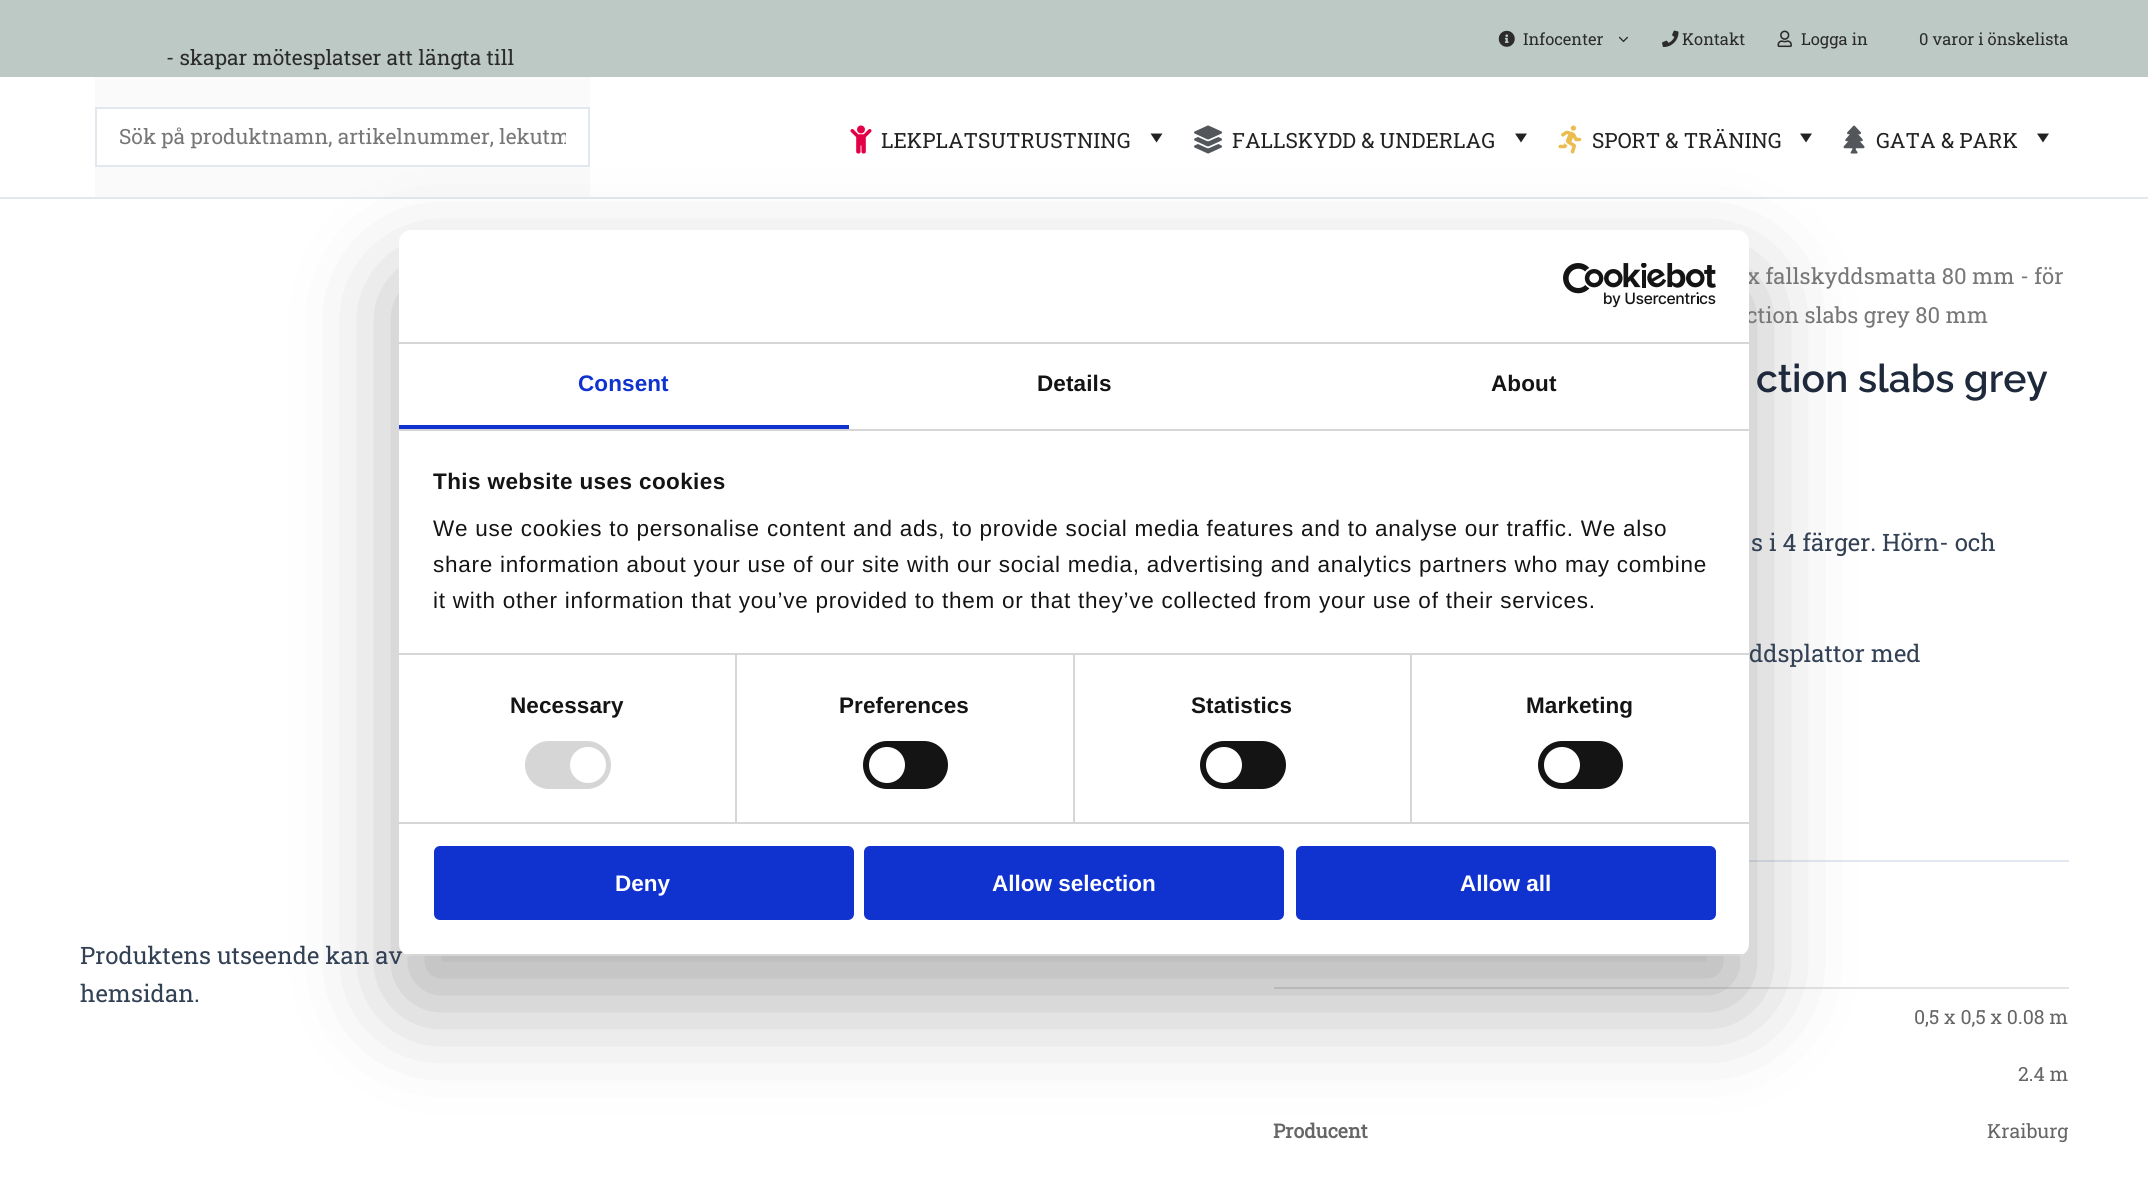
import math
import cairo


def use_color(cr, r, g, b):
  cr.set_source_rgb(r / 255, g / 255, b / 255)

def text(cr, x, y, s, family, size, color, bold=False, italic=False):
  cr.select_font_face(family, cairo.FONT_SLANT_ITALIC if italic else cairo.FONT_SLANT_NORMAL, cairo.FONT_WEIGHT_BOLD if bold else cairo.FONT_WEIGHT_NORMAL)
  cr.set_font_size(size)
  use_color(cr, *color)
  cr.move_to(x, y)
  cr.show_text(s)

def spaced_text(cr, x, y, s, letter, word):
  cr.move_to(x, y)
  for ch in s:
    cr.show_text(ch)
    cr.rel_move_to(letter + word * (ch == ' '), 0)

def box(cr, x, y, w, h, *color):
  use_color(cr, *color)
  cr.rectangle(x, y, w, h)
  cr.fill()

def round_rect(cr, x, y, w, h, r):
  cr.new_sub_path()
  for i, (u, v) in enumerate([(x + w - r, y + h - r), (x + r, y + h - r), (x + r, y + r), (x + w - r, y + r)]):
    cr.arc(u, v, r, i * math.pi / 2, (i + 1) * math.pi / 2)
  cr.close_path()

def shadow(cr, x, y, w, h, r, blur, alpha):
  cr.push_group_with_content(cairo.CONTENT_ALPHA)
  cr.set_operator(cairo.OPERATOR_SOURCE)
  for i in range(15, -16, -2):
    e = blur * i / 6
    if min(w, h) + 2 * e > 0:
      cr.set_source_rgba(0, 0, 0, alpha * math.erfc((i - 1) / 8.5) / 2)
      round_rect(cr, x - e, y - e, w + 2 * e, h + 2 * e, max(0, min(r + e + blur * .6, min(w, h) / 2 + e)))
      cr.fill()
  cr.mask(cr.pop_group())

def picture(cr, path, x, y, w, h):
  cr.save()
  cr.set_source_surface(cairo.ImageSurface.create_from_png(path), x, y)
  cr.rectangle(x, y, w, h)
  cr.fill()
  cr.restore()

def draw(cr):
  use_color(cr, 255, 255, 255)
  cr.paint()
  box(cr, 0, 0, 2148, 77, 188, 201, 197)
  picture(cr, "img_01.png", 1498, 30, 17, 17)
  picture(cr, "img_02.png", 1619, 36, 10, 7)
  picture(cr, "img_03.png", 1662, 30, 17, 18)
  picture(cr, "img_04.png", 1777, 30, 15, 18)
  box(cr, 0, 197, 2148, 2, 226, 232, 240)
  box(cr, 95, 77, 495, 120, 250, 250, 250)
  use_color(cr, 255, 255, 255)
  cr.rectangle(96, 108, 493, 58)
  cr.fill_preserve()
  use_color(cr, 226, 232, 240)
  cr.stroke()
  picture(cr, "img_05.png", 850, 125, 22, 29)
  use_color(cr, 34, 34, 34)
  cr.new_path()
  cr.move_to(1162.5, 133.5)
  cr.line_to(1156.5, 142.5)
  cr.line_to(1150.5, 133.5)
  cr.close_path()
  cr.fill()
  picture(cr, "img_06.png", 1194, 125, 28, 29)
  cr.new_path()
  cr.move_to(1527, 133.5)
  cr.line_to(1521, 142.5)
  cr.line_to(1515, 133.5)
  cr.close_path()
  cr.fill()
  picture(cr, "img_07.png", 1558, 125, 24, 29)
  cr.new_path()
  cr.move_to(1812, 133.5)
  cr.line_to(1806, 142.5)
  cr.line_to(1800, 133.5)
  cr.close_path()
  cr.fill()
  picture(cr, "img_08.png", 1843, 125, 22, 29)
  cr.new_path()
  cr.move_to(2049, 133.5)
  cr.line_to(2043, 142.5)
  cr.line_to(2037, 133.5)
  cr.close_path()
  cr.fill()
  box(cr, 1749, 860, 320, 2, 226, 232, 240)
  box(cr, 1274, 987, 795, 2, 229, 228, 227)
  use_color(cr, 0, 0, 0)
  shadow(cr, 399, 278, 1350, 726, 12, 51, 0.3)
  text(cr, 1523, 45, "Infocenter", "Roboto Slab", 16.5, (43, 43, 43))
  text(cr, 1682, 45, "Kontakt", "Roboto Slab", 16.5, (43, 43, 43))
  text(cr, 1801, 45, "Logga in", "Roboto Slab", 16.5, (43, 43, 43))
  text(cr, 1919, 45, "0 varor i önskelista", "Roboto Slab", 16.5, (43, 43, 43))
  text(cr, 166, 65, "- skapar mötesplatser att längta till", "Roboto Slab", 21, (43, 43, 43))
  cr.save()
  cr.rectangle(119, 122, 447, 28)
  cr.clip()
  text(cr, 119, 144, "Sök på produktnamn, artikelnummer, lekutm", "Roboto Slab", 21, (119, 119, 119))
  cr.restore()
  text(cr, 881, 148, "LEKPLATSUTRUSTNING", "Roboto Slab", 21, (34, 34, 34))
  text(cr, 1232, 148, "FALLSKYDD & UNDERLAG", "Roboto Slab", 21, (34, 34, 34))
  text(cr, 1592, 148, "SPORT & TRÄNING", "Roboto Slab", 21, (34, 34, 34))
  text(cr, 1876, 148, "GATA & PARK", "Roboto Slab", 21, (34, 34, 34))
  text(cr, 80, 964, "Produktens utseende kan av", "Roboto Slab", 24, (51, 65, 85))
  text(cr, 80, 1002, "hemsidan.", "Roboto Slab", 24, (51, 65, 85))
  text(cr, 1747, 284, "x fallskyddsmatta 80 mm - för", "Roboto Slab", 22.1, (119, 119, 119))
  text(cr, 1746, 323, "ction slabs grey 80 mm", "Roboto Slab", 22.1, (119, 119, 119))
  text(cr, 1756, 392, "ction slabs grey", "Raleway SemiBold", 39, (30, 41, 59))
  text(cr, 1751, 551, "s i 4 färger. Hörn- och", "Roboto Slab", 24, (51, 65, 85))
  text(cr, 1749, 662, "ddsplattor med", "Roboto Slab", 24, (51, 65, 85))
  text(cr, 1914, 1024, "0,5 x 0,5 x 0.08 m", "Roboto Slab", 19.5, (102, 102, 102))
  text(cr, 2018, 1081, "2.4 m", "Roboto Slab", 19.5, (102, 102, 102))
  text(cr, 1273, 1138, "Producent", "Roboto Slab", 19.5, (102, 102, 102), bold=True)
  text(cr, 1987, 1138, "Kraiburg", "Roboto Slab", 19.5, (102, 102, 102))
  use_color(cr, 255, 255, 255)
  round_rect(cr, 399, 230, 1350, 726, 12)
  cr.fill()
  box(cr, 399, 342, 1350, 2, 214, 214, 214)
  picture(cr, "img_09.png", 1563, 263, 153, 45)
  box(cr, 399, 429, 1350, 2, 214, 214, 214)
  box(cr, 399, 425, 450, 4, 16, 50, 207)
  cr.select_font_face("Liberation Sans", cairo.FONT_SLANT_NORMAL, cairo.FONT_WEIGHT_BOLD)
  cr.set_font_size(22.5)
  spaced_text(cr, 578, 391, "Consent", 0.1, 0)
  use_color(cr, 20, 20, 20)
  spaced_text(cr, 1037, 391, "Details", 0.1, 0)
  spaced_text(cr, 1491, 391, "About", 0.1, 0)
  spaced_text(cr, 433, 489, "This website uses cookies", 0.4, 0)
  cr.select_font_face("Liberation Sans")
  spaced_text(cr, 433, 536, "We use cookies to personalise content and ads, to provide social media features and to analyse our traffic. We also", 0.75, 0)
  spaced_text(cr, 433, 572, "share information about your use of our site with our social media, advertising and analytics partners who may combine", 0.75, 0)
  spaced_text(cr, 433, 608, "it with other information that you’ve provided to them or that they’ve collected from your use of their services.", 0.75, 0)
  box(cr, 399, 822, 1350, 2, 214, 214, 214)
  box(cr, 735, 654, 2, 168, 214, 214, 214)
  cr.select_font_face("Liberation Sans", cairo.FONT_SLANT_NORMAL, cairo.FONT_WEIGHT_BOLD)
  use_color(cr, 20, 20, 20)
  spaced_text(cr, 510, 713, "Necessary", 0.1, 0)
  use_color(cr, 214, 214, 214)
  round_rect(cr, 525, 741, 86, 48, 24)
  cr.fill()
  use_color(cr, 255, 255, 255)
  cr.arc(588, 765, 18, 0, 2 * math.pi)
  cr.fill()
  box(cr, 1073, 654, 2, 168, 214, 214, 214)
  use_color(cr, 20, 20, 20)
  spaced_text(cr, 839, 713, "Preferences", 0.1, 0)
  round_rect(cr, 863, 741, 85, 48, 24)
  cr.fill()
  use_color(cr, 255, 255, 255)
  cr.arc(887, 765, 18, 0, 2 * math.pi)
  cr.fill()
  box(cr, 1410, 654, 2, 168, 214, 214, 214)
  box(cr, 399, 653, 1350, 2, 214, 214, 214)
  use_color(cr, 20, 20, 20)
  spaced_text(cr, 1191, 713, "Statistics", 0.1, 0)
  round_rect(cr, 1200, 741, 86, 48, 24)
  cr.fill()
  use_color(cr, 255, 255, 255)
  cr.arc(1224, 765, 18, 0, 2 * math.pi)
  cr.fill()
  use_color(cr, 20, 20, 20)
  spaced_text(cr, 1526, 713, "Marketing", 0.1, 0)
  round_rect(cr, 1538, 741, 85, 48, 24)
  cr.fill()
  use_color(cr, 255, 255, 255)
  cr.arc(1562, 765, 18, 0, 2 * math.pi)
  cr.fill()
  cr.save()
  round_rect(cr, 399, 230, 1350, 726, 12)
  cr.clip()
  box(cr, 399, 954, 1350, 2, 214, 214, 214)
  cr.restore()
  use_color(cr, 16, 50, 207)
  round_rect(cr, 435.5, 847.5, 417, 71, 4.5)
  cr.fill_preserve()
  cr.set_line_width(3)
  cr.stroke()
  text(cr, 615, 891, "Deny", "Liberation Sans", 22.5, (255, 255, 255), bold=True)
  use_color(cr, 16, 50, 207)
  round_rect(cr, 865.5, 847.5, 417, 71, 4.5)
  cr.fill_preserve()
  cr.stroke()
  text(cr, 992, 891, "Allow selection", "Liberation Sans", 22.5, (255, 255, 255), bold=True)
  use_color(cr, 16, 50, 207)
  round_rect(cr, 1297.5, 847.5, 417, 71, 4.5)
  cr.fill_preserve()
  cr.stroke()
  text(cr, 1460, 891, "Allow all", "Liberation Sans", 22.5, (255, 255, 255), bold=True)


surface = cairo.ImageSurface(cairo.FORMAT_RGB24, 2148, 1183)
cr = cairo.Context(surface)
options = cairo.FontOptions()
options.set_hint_metrics(cairo.HINT_METRICS_OFF)
options.set_hint_style(cairo.HINT_STYLE_NONE)
cr.set_font_options(options)
cr.set_miter_limit(4)
draw(cr)
surface.write_to_png("out.png")
